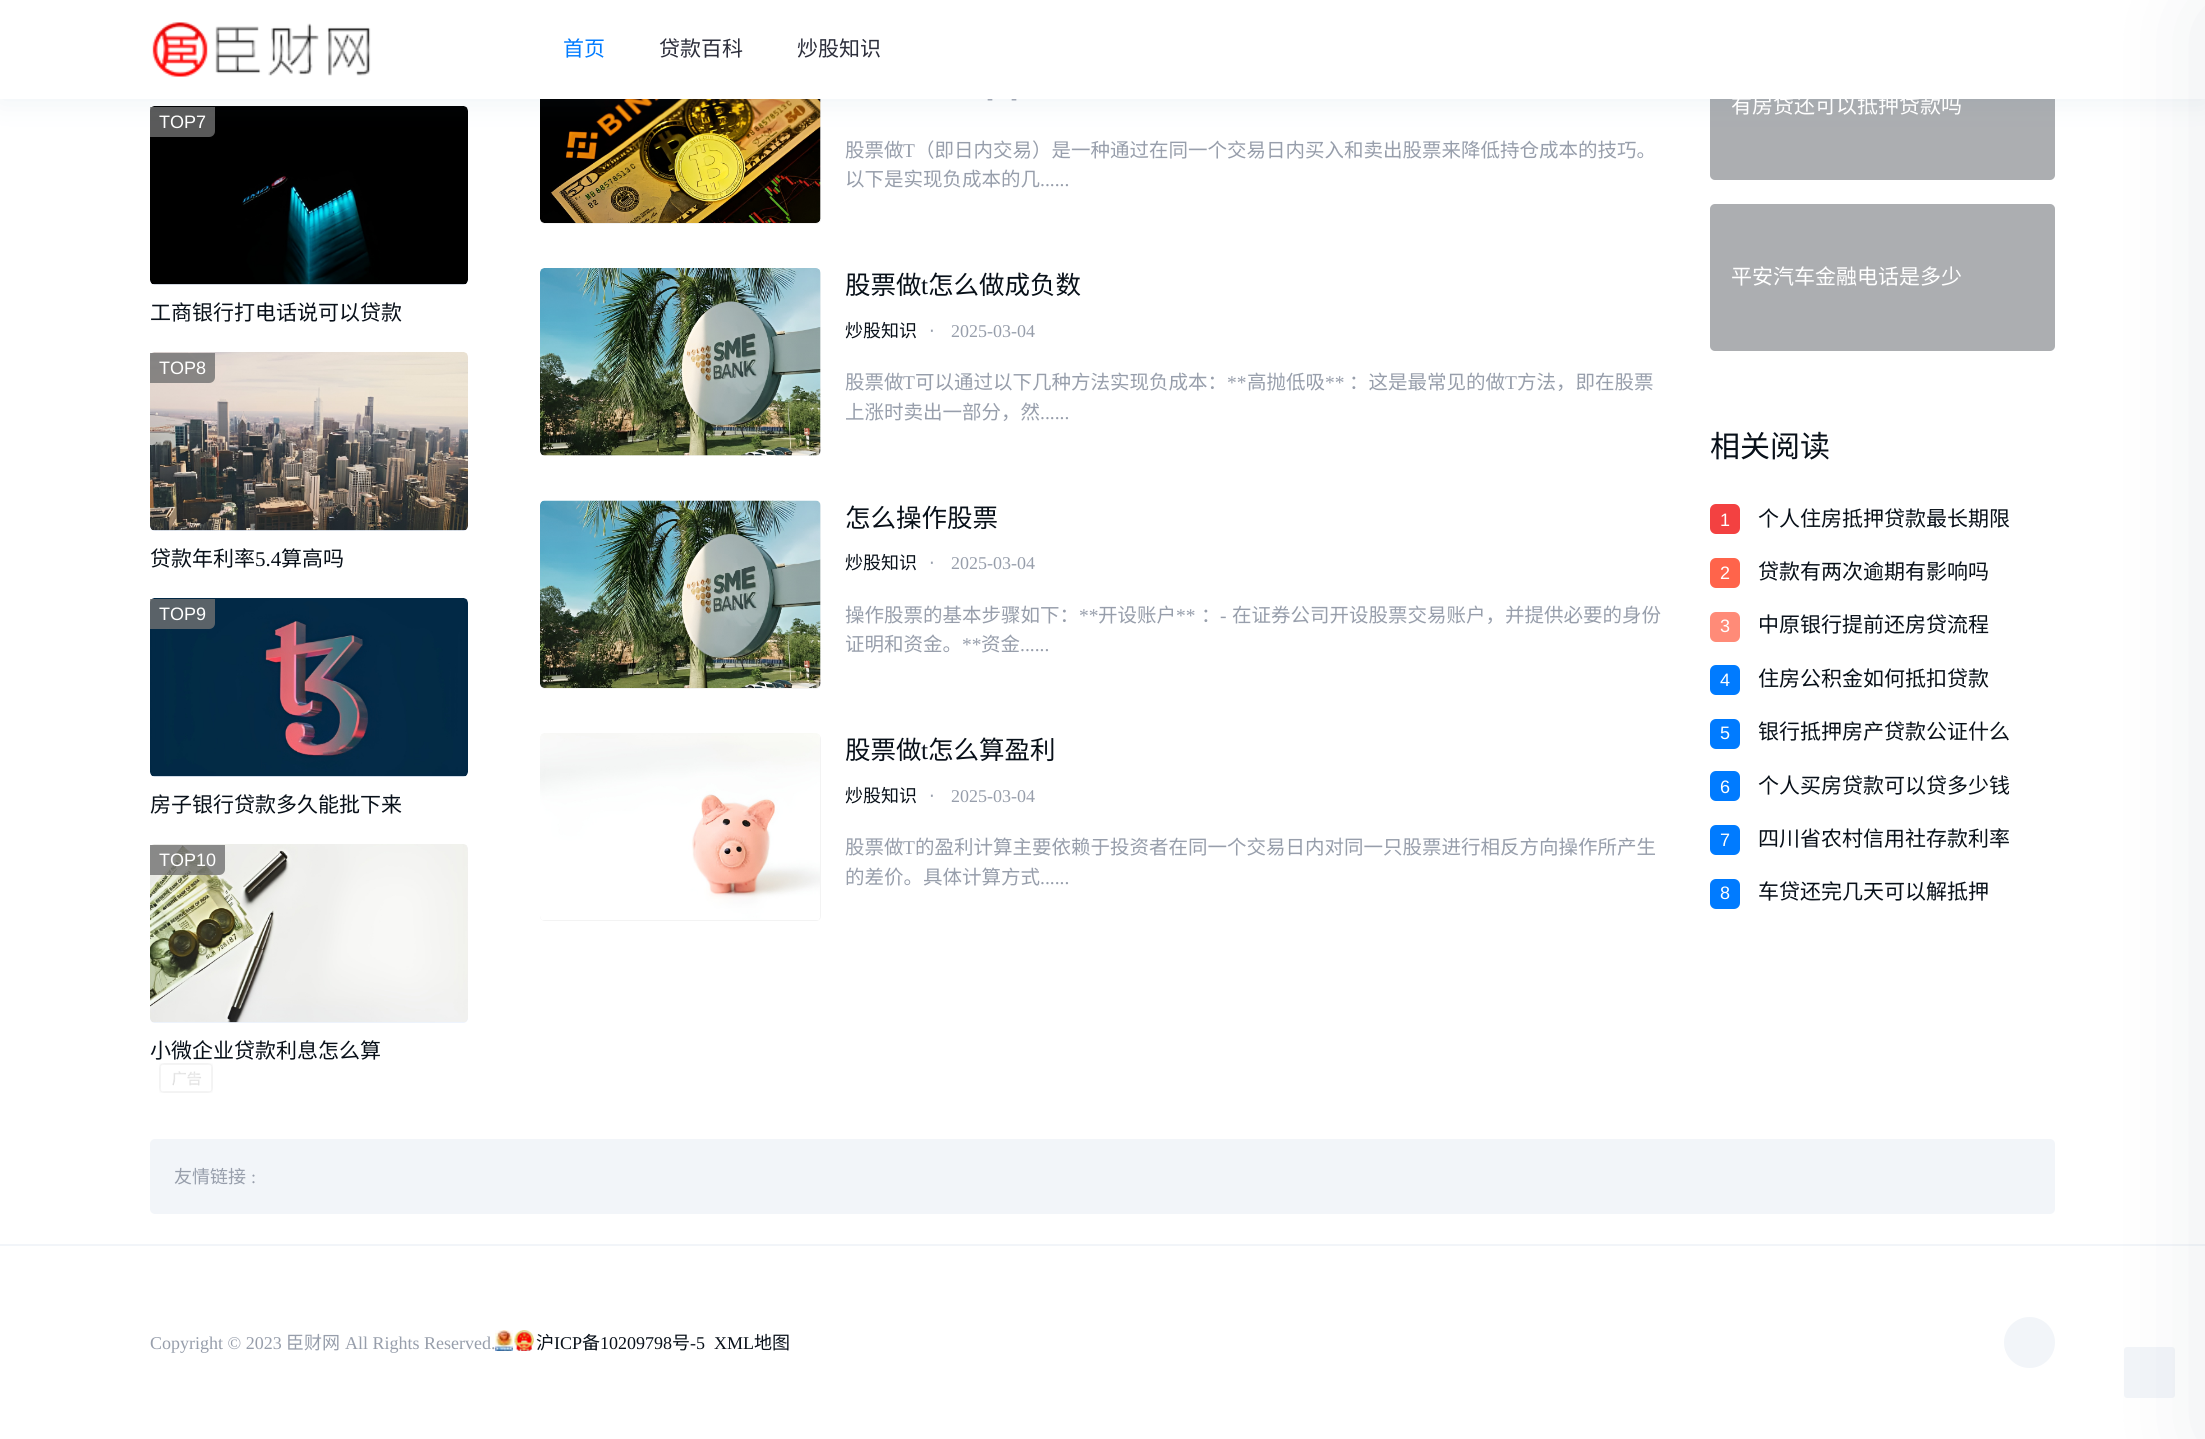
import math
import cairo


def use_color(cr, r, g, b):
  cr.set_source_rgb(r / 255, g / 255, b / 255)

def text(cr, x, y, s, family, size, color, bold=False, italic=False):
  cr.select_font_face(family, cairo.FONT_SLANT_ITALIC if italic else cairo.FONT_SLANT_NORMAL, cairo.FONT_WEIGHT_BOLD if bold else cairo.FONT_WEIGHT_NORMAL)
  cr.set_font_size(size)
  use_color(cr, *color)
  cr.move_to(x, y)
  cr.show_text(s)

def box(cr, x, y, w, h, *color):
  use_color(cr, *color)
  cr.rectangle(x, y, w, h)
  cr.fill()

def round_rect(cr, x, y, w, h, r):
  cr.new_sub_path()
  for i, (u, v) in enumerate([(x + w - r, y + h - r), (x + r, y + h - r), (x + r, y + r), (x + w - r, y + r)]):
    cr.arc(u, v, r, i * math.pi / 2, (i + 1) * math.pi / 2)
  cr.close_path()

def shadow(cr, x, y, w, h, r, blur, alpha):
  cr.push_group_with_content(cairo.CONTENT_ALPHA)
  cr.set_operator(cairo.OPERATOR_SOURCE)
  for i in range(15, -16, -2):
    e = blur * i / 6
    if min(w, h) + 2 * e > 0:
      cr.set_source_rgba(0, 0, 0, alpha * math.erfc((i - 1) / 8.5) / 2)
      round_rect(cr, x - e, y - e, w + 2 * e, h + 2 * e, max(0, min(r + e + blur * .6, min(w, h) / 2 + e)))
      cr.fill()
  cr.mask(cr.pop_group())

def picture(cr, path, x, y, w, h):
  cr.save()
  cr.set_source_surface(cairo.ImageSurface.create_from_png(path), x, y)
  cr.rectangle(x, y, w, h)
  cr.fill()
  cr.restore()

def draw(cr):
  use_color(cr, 255, 255, 255)
  cr.paint()
  use_color(cr, 237, 243, 254)
  round_rect(cr, 150, 107, 318, 178, 5)
  cr.fill()
  picture(cr, "img_02.png", 150, 106, 318, 179)
  cr.set_source_rgba(0.443, 0.443, 0.443, 0.8)
  cr.new_path()
  cr.move_to(150, 107)
  cr.line_to(215, 107)
  cr.line_to(215, 131)
  cr.curve_to(215, 134.5, 212.5, 137, 209, 137)
  cr.line_to(150, 137)
  cr.close_path()
  cr.fill()
  use_color(cr, 243, 243, 243)
  round_rect(cr, 540, 36, 281, 188, 5)
  cr.fill()
  picture(cr, "img_06.png", 540, 99, 281, 124)
  use_color(cr, 242, 242, 242)
  round_rect(cr, 1710, 32, 345, 148, 5)
  cr.fill()
  cr.set_source_rgba(0.031, 0.063, 0.098, 0.3)
  round_rect(cr, 1710, 32, 345, 148, 5)
  cr.fill()
  use_color(cr, 44, 101, 144)
  shadow(cr, 0, 0, 2205, 99, 0, 15, 0.1)
  box(cr, 0, 0, 2205, 99, 255, 255, 255)
  picture(cr, "img_01.png", 152, 22, 219, 55)
  box(cr, 0, 1244, 2205, 2, 242, 245, 249)
  round_rect(cr, 2125, 1348, 49, 49, 2)
  cr.fill_preserve()
  cr.stroke()
  use_color(cr, 131, 140, 157)
  shadow(cr, 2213, 15, 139, 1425, 0, 49, 0.2)
  use_color(cr, 237, 243, 254)
  round_rect(cr, 150, 353, 318, 178, 5)
  cr.fill()
  picture(cr, "img_03.png", 150, 352, 318, 179)
  cr.set_source_rgba(0.443, 0.443, 0.443, 0.8)
  cr.new_path()
  cr.move_to(150, 353)
  cr.line_to(215, 353)
  cr.line_to(215, 377)
  cr.curve_to(215, 380.5, 212.5, 383, 209, 383)
  cr.line_to(150, 383)
  cr.close_path()
  cr.fill()
  use_color(cr, 237, 243, 254)
  round_rect(cr, 150, 599, 318, 178, 5)
  cr.fill()
  picture(cr, "img_04.png", 150, 598, 318, 179)
  cr.set_source_rgba(0.443, 0.443, 0.443, 0.8)
  cr.new_path()
  cr.move_to(150, 599)
  cr.line_to(215, 599)
  cr.line_to(215, 623)
  cr.curve_to(215, 626.5, 212.5, 629, 209, 629)
  cr.line_to(150, 629)
  cr.close_path()
  cr.fill()
  use_color(cr, 237, 243, 254)
  round_rect(cr, 150, 845, 318, 178, 5)
  cr.fill()
  picture(cr, "img_05.png", 150, 844, 318, 179)
  cr.set_source_rgba(0.443, 0.443, 0.443, 0.8)
  cr.new_path()
  cr.move_to(150, 845)
  cr.line_to(225, 845)
  cr.line_to(225, 869)
  cr.curve_to(225, 872.5, 222.5, 875, 219, 875)
  cr.line_to(150, 875)
  cr.close_path()
  cr.fill()
  use_color(cr, 243, 243, 243)
  round_rect(cr, 540, 269, 281, 187, 5)
  cr.fill()
  picture(cr, "img_07.png", 540, 268, 281, 188)
  round_rect(cr, 540, 501, 281, 188, 5)
  cr.fill()
  picture(cr, "img_08.png", 540, 500, 281, 188)
  round_rect(cr, 540, 734, 281, 187, 5)
  cr.fill()
  picture(cr, "img_09.png", 540, 733, 280, 187)
  use_color(cr, 242, 242, 242)
  round_rect(cr, 1710, 204, 345, 147, 5)
  cr.fill()
  cr.set_source_rgba(0.031, 0.063, 0.098, 0.3)
  round_rect(cr, 1710, 204, 345, 147, 5)
  cr.fill()
  use_color(cr, 243, 65, 65)
  round_rect(cr, 1711, 505, 28, 28, 5)
  cr.fill_preserve()
  cr.stroke()
  use_color(cr, 255, 100, 75)
  round_rect(cr, 1711, 559, 28, 28, 5)
  cr.fill_preserve()
  cr.stroke()
  use_color(cr, 255, 139, 120)
  round_rect(cr, 1711, 613, 28, 28, 5)
  cr.fill_preserve()
  cr.stroke()
  use_color(cr, 0, 123, 255)
  round_rect(cr, 1711, 666, 28, 28, 5)
  cr.fill_preserve()
  cr.stroke()
  round_rect(cr, 1711, 720, 28, 28, 5)
  cr.fill_preserve()
  cr.stroke()
  round_rect(cr, 1711, 772, 28, 28, 5)
  cr.fill_preserve()
  cr.stroke()
  round_rect(cr, 1711, 826, 28, 28, 5)
  cr.fill_preserve()
  cr.stroke()
  round_rect(cr, 1711, 880, 28, 28, 5)
  cr.fill_preserve()
  cr.stroke()
  picture(cr, "img_10.png", 159, 1063, 54, 30)
  use_color(cr, 242, 245, 249)
  round_rect(cr, 150, 1139, 1905, 75, 5)
  cr.fill()
  picture(cr, "img_11.png", 495, 1330, 18, 21)
  picture(cr, "img_12.png", 514, 1330, 20, 21)
  cr.arc(2029.5, 1342.5, 24.5, 0, 2 * math.pi)
  cr.fill_preserve()
  cr.stroke()
  text(cr, 563, 56, "首页", "Noto Sans CJK SC", 21, (0, 123, 255))
  text(cr, 659, 56, "贷款百科", "Noto Sans CJK SC", 21, (44, 46, 59))
  text(cr, 797, 56, "炒股知识", "Noto Sans CJK SC", 21, (44, 46, 59))
  text(cr, 159, 128, "TOP7", "Liberation Sans", 18, (255, 255, 255))
  text(cr, 150, 320, "工商银行打电话说可以贷款", "Noto Sans CJK SC", 21, (8, 16, 25))
  text(cr, 159, 374, "TOP8", "Liberation Sans", 18, (255, 255, 255))
  text(cr, 150, 566, "贷款年利率", "Noto Sans CJK SC", 21, (8, 16, 25))
  text(cr, 255, 566, "5.4", "Liberation Serif", 21, (8, 16, 25))
  text(cr, 281, 566, "算高吗", "Noto Sans CJK SC", 21, (8, 16, 25))
  text(cr, 159, 620, "TOP9", "Liberation Sans", 18, (255, 255, 255))
  text(cr, 150, 812, "房子银行贷款多久能批下来", "Noto Sans CJK SC", 21, (8, 16, 25))
  text(cr, 159, 866, "TOP10", "Liberation Sans", 18, (255, 255, 255))
  text(cr, 150, 1058, "小微企业贷款利息怎么算", "Noto Sans CJK SC", 21, (8, 16, 25))
  text(cr, 987, 104, "-", "Liberation Serif", 18, (151, 158, 171))
  text(cr, 1011, 104, "-", "Liberation Serif", 18, (151, 158, 171))
  text(cr, 845, 157, "股票做", "Noto Sans CJK SC", 19.5, (151, 158, 171))
  text(cr, 903, 157, "T", "Liberation Serif", 19.5, (151, 158, 171))
  text(cr, 915, 157, "（即日内交易）是一种通过在同一个交易日内买入和卖出股票来降低持仓成本的技巧。", "Noto Sans CJK SC", 19.5, (151, 158, 171))
  text(cr, 845, 186, "以下是实现负成本的几", "Noto Sans CJK SC", 19.5, (151, 158, 171))
  text(cr, 1040, 186, "......", "Liberation Serif", 19.5, (151, 158, 171))
  text(cr, 845, 294, "股票做", "Noto Sans CJK SC", 25.5, (8, 16, 25))
  text(cr, 921, 294, "t", "Liberation Serif", 25.5, (8, 16, 25))
  text(cr, 928, 294, "怎么做成负数", "Noto Sans CJK SC", 25.5, (8, 16, 25))
  text(cr, 845, 337, "炒股知识", "Noto Sans CJK SC", 18, (8, 16, 25))
  text(cr, 929, 337, "⋅", "DejaVu Sans", 18, (151, 158, 171))
  text(cr, 951, 337, "2025-03-04", "Liberation Serif", 18, (151, 158, 171))
  text(cr, 845, 389, "股票做", "Noto Sans CJK SC", 19.5, (151, 158, 171))
  text(cr, 903, 389, "T", "Liberation Serif", 19.5, (151, 158, 171))
  text(cr, 915, 389, "可以通过以下几种方法实现负成本：", "Noto Sans CJK SC", 19.5, (151, 158, 171))
  text(cr, 1227, 389, "**", "Liberation Serif", 19.5, (151, 158, 171))
  text(cr, 1247, 389, "高抛低吸", "Noto Sans CJK SC", 19.5, (151, 158, 171))
  text(cr, 1325, 389, "**", "Liberation Serif", 19.5, (151, 158, 171))
  text(cr, 1349, 389, "：这是最常见的做", "Noto Sans CJK SC", 19.5, (151, 158, 171))
  text(cr, 1505, 389, "T", "Liberation Serif", 19.5, (151, 158, 171))
  text(cr, 1517, 389, "方法，即在股票", "Noto Sans CJK SC", 19.5, (151, 158, 171))
  text(cr, 845, 419, "上涨时卖出一部分，然", "Noto Sans CJK SC", 19.5, (151, 158, 171))
  text(cr, 1040, 419, "......", "Liberation Serif", 19.5, (151, 158, 171))
  text(cr, 845, 527, "怎么操作股票", "Noto Sans CJK SC", 25.5, (8, 16, 25))
  text(cr, 845, 569, "炒股知识", "Noto Sans CJK SC", 18, (8, 16, 25))
  text(cr, 929, 569, "⋅", "DejaVu Sans", 18, (151, 158, 171))
  text(cr, 951, 569, "2025-03-04", "Liberation Serif", 18, (151, 158, 171))
  text(cr, 845, 622, "操作股票的基本步骤如下：", "Noto Sans CJK SC", 19.5, (151, 158, 171))
  text(cr, 1079, 622, "**", "Liberation Serif", 19.5, (151, 158, 171))
  text(cr, 1098, 622, "开设账户", "Noto Sans CJK SC", 19.5, (151, 158, 171))
  text(cr, 1176, 622, "**", "Liberation Serif", 19.5, (151, 158, 171))
  text(cr, 1201, 622, "：", "Noto Sans CJK SC", 19.5, (151, 158, 171))
  text(cr, 1220, 622, "-", "Liberation Serif", 19.5, (151, 158, 171))
  text(cr, 1232, 622, "在证券公司开设股票交易账户，并提供必要的身份", "Noto Sans CJK SC", 19.5, (151, 158, 171))
  text(cr, 845, 651, "证明和资金。", "Noto Sans CJK SC", 19.5, (151, 158, 171))
  text(cr, 962, 651, "**", "Liberation Serif", 19.5, (151, 158, 171))
  text(cr, 981, 651, "资金", "Noto Sans CJK SC", 19.5, (151, 158, 171))
  text(cr, 1020, 651, "......", "Liberation Serif", 19.5, (151, 158, 171))
  text(cr, 845, 759, "股票做", "Noto Sans CJK SC", 25.5, (8, 16, 25))
  text(cr, 921, 759, "t", "Liberation Serif", 25.5, (8, 16, 25))
  text(cr, 928, 759, "怎么算盈利", "Noto Sans CJK SC", 25.5, (8, 16, 25))
  text(cr, 845, 802, "炒股知识", "Noto Sans CJK SC", 18, (8, 16, 25))
  text(cr, 929, 802, "⋅", "DejaVu Sans", 18, (151, 158, 171))
  text(cr, 951, 802, "2025-03-04", "Liberation Serif", 18, (151, 158, 171))
  text(cr, 845, 854, "股票做", "Noto Sans CJK SC", 19.5, (151, 158, 171))
  text(cr, 903, 854, "T", "Liberation Serif", 19.5, (151, 158, 171))
  text(cr, 915, 854, "的盈利计算主要依赖于投资者在同一个交易日内对同一只股票进行相反方向操作所产生", "Noto Sans CJK SC", 19.5, (151, 158, 171))
  text(cr, 845, 884, "的差价。具体计算方式", "Noto Sans CJK SC", 19.5, (151, 158, 171))
  text(cr, 1040, 884, "......", "Liberation Serif", 19.5, (151, 158, 171))
  text(cr, 1731, 113, "有房贷还可以抵押贷款吗", "Noto Sans CJK SC", 21, (255, 255, 255))
  text(cr, 1731, 284, "平安汽车金融电话是多少", "Noto Sans CJK SC", 21, (255, 255, 255))
  text(cr, 1710, 457, "相关阅读", "Noto Sans CJK SC", 30, (8, 16, 25))
  text(cr, 1720, 526, "1", "Liberation Sans", 18, (255, 255, 255))
  text(cr, 1758, 526, "个人住房抵押贷款最长期限", "Noto Sans CJK SC", 21, (8, 16, 25))
  text(cr, 1720, 579, "2", "Liberation Sans", 18, (255, 255, 255))
  text(cr, 1758, 579, "贷款有两次逾期有影响吗", "Noto Sans CJK SC", 21, (8, 16, 25))
  text(cr, 1720, 632, "3", "Liberation Sans", 18, (255, 255, 255))
  text(cr, 1758, 632, "中原银行提前还房贷流程", "Noto Sans CJK SC", 21, (8, 16, 25))
  text(cr, 1720, 686, "4", "Liberation Sans", 18, (255, 255, 255))
  text(cr, 1758, 686, "住房公积金如何抵扣贷款", "Noto Sans CJK SC", 21, (8, 16, 25))
  text(cr, 1720, 739, "5", "Liberation Sans", 18, (255, 255, 255))
  text(cr, 1758, 739, "银行抵押房产贷款公证什么", "Noto Sans CJK SC", 21, (8, 16, 25))
  text(cr, 1720, 793, "6", "Liberation Sans", 18, (255, 255, 255))
  text(cr, 1758, 793, "个人买房贷款可以贷多少钱", "Noto Sans CJK SC", 21, (8, 16, 25))
  text(cr, 1720, 846, "7", "Liberation Sans", 18, (255, 255, 255))
  text(cr, 1758, 846, "四川省农村信用社存款利率", "Noto Sans CJK SC", 21, (8, 16, 25))
  text(cr, 1720, 899, "8", "Liberation Sans", 18, (255, 255, 255))
  text(cr, 1758, 899, "车贷还完几天可以解抵押", "Noto Sans CJK SC", 21, (8, 16, 25))
  text(cr, 174, 1183, "友情链接", "Noto Sans CJK SC", 18, (151, 158, 171))
  text(cr, 251, 1183, ":", "Liberation Serif", 18, (151, 158, 171))
  text(cr, 150, 1349, "Copyright © 2023", "Liberation Serif", 18, (151, 158, 171))
  text(cr, 286, 1349, "臣财网", "Noto Sans CJK SC", 18, (151, 158, 171))
  text(cr, 345, 1349, "All Rights Reserved.", "Liberation Serif", 18, (151, 158, 171))
  text(cr, 536, 1349, "沪", "Noto Sans CJK SC", 18, (8, 16, 25))
  text(cr, 554, 1349, "ICP", "Liberation Serif", 18, (8, 16, 25))
  text(cr, 582, 1349, "备", "Noto Sans CJK SC", 18, (8, 16, 25))
  text(cr, 600, 1349, "10209798", "Liberation Serif", 18, (8, 16, 25))
  text(cr, 672, 1349, "号", "Noto Sans CJK SC", 18, (8, 16, 25))
  text(cr, 690, 1349, "-5", "Liberation Serif", 18, (8, 16, 25))
  text(cr, 714, 1349, "XML", "Liberation Serif", 18, (8, 16, 25))
  text(cr, 754, 1349, "地图", "Noto Sans CJK SC", 18, (8, 16, 25))


surface = cairo.ImageSurface(cairo.FORMAT_RGB24, 2205, 1439)
cr = cairo.Context(surface)
options = cairo.FontOptions()
options.set_hint_metrics(cairo.HINT_METRICS_OFF)
options.set_hint_style(cairo.HINT_STYLE_NONE)
cr.set_font_options(options)
cr.set_miter_limit(4)
draw(cr)
surface.write_to_png("out.png")
